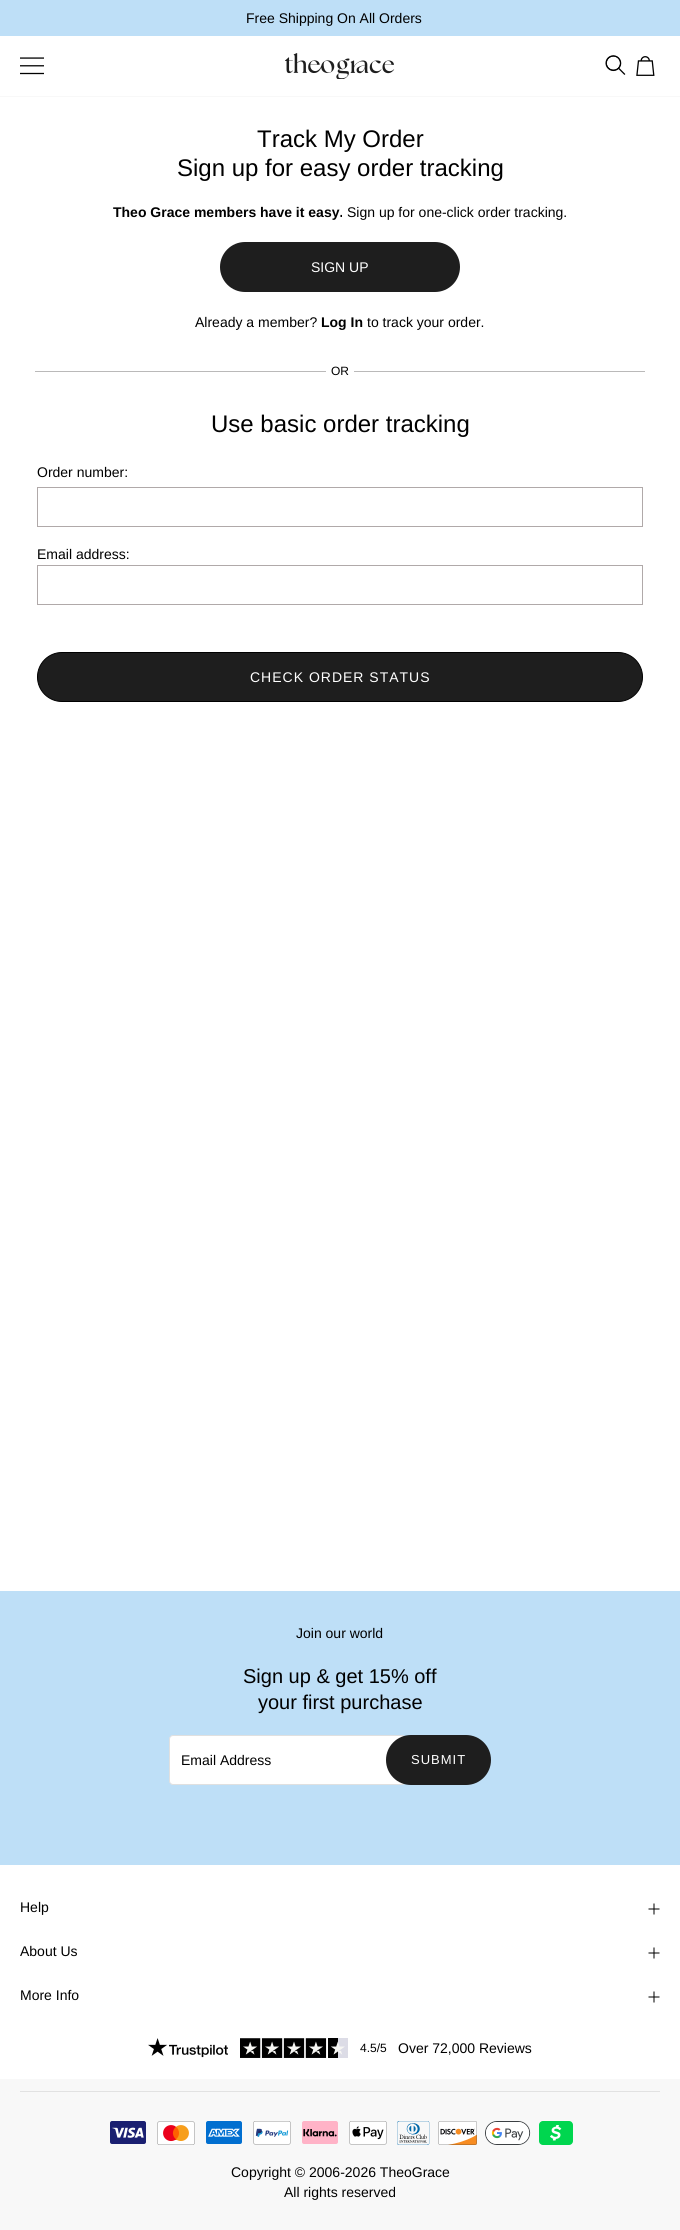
import math
import cairo


def use_color(cr, r, g, b):
  cr.set_source_rgb(r / 255, g / 255, b / 255)

def text(cr, x, y, s, family, size, color, bold=False, italic=False):
  cr.select_font_face(family, cairo.FONT_SLANT_ITALIC if italic else cairo.FONT_SLANT_NORMAL, cairo.FONT_WEIGHT_BOLD if bold else cairo.FONT_WEIGHT_NORMAL)
  cr.set_font_size(size)
  use_color(cr, *color)
  cr.move_to(x, y)
  cr.show_text(s)

def spaced_text(cr, x, y, s, letter, word):
  cr.move_to(x, y)
  for ch in s:
    cr.show_text(ch)
    cr.rel_move_to(letter + word * (ch == ' '), 0)

def box(cr, x, y, w, h, *color):
  use_color(cr, *color)
  cr.rectangle(x, y, w, h)
  cr.fill()

def round_rect(cr, x, y, w, h, r):
  cr.new_sub_path()
  for i, (u, v) in enumerate([(x + w - r, y + h - r), (x + r, y + h - r), (x + r, y + r), (x + w - r, y + r)]):
    cr.arc(u, v, r, i * math.pi / 2, (i + 1) * math.pi / 2)
  cr.close_path()

def picture(cr, path, x, y, w, h):
  cr.save()
  cr.set_source_surface(cairo.ImageSurface.create_from_png(path), x, y)
  cr.rectangle(x, y, w, h)
  cr.fill()
  cr.restore()

def draw(cr):
  use_color(cr, 255, 255, 255)
  cr.paint()
  box(cr, 0, 0, 680, 36, 190, 223, 247)
  box(cr, 0, 96, 680, 1, 248, 248, 248)
  picture(cr, "img_01.png", 20, 57, 24, 18)
  picture(cr, "img_02.png", 285, 53, 110, 26)
  picture(cr, "img_03.png", 605, 55, 21, 20)
  picture(cr, "img_04.png", 636, 56, 19, 20)
  use_color(cr, 30, 30, 30)
  round_rect(cr, 220, 242, 240, 50, 25)
  cr.fill()
  box(cr, 35, 371, 291, 1, 186, 185, 185)
  box(cr, 354, 371, 291, 1, 186, 185, 185)
  cr.rectangle(37.5, 487.5, 605, 39)
  use_color(cr, 176, 169, 169)
  cr.set_line_width(1)
  cr.stroke()
  cr.rectangle(37.5, 565.5, 605, 39)
  cr.stroke()
  use_color(cr, 30, 30, 30)
  round_rect(cr, 37.5, 652.5, 605, 49, 24.5)
  cr.fill_preserve()
  use_color(cr, 0, 0, 0)
  cr.stroke()
  box(cr, 0, 1591, 680, 274, 190, 223, 247)
  use_color(cr, 255, 255, 255)
  round_rect(cr, 169.5, 1735.5, 236, 49, 3.5)
  cr.fill_preserve()
  use_color(cr, 224, 224, 224)
  cr.stroke()
  use_color(cr, 30, 30, 30)
  round_rect(cr, 386, 1735, 105, 50, 25)
  cr.fill()
  picture(cr, "img_05.png", 648, 1903, 12, 12)
  picture(cr, "img_05.png", 648, 1947, 12, 12)
  picture(cr, "img_05.png", 648, 1991, 12, 12)
  picture(cr, "img_06.png", 148, 2038, 80, 20)
  picture(cr, "img_07.png", 240, 2038, 108, 20)
  box(cr, 0, 2079, 680, 151, 248, 248, 248)
  box(cr, 20, 2091, 640, 1, 226, 226, 226)
  picture(cr, "img_08.png", 110, 2121, 36, 23)
  picture(cr, "img_09.png", 157, 2121, 38, 24)
  picture(cr, "img_10.png", 206, 2121, 36, 23)
  picture(cr, "img_11.png", 253, 2121, 38, 24)
  picture(cr, "img_12.png", 302, 2121, 36, 23)
  picture(cr, "img_13.png", 349, 2121, 38, 24)
  picture(cr, "img_14.png", 397, 2121, 33, 24)
  picture(cr, "img_15.png", 438, 2121, 39, 24)
  picture(cr, "img_16.png", 485, 2121, 46, 24)
  picture(cr, "img_17.png", 539, 2121, 34, 24)
  text(cr, 246, 23, "Free Shipping On All Orders", "Liberation Sans", 14, (0, 0, 0))
  text(cr, 257, 147, "Track My Order", "Liberation Sans", 24, (0, 0, 0))
  text(cr, 177, 176, "Sign up for easy order tracking", "Liberation Sans", 24, (0, 0, 0))
  text(cr, 113, 217, "Theo Grace members have it easy.", "Liberation Sans", 14, (0, 0, 0), bold=True)
  text(cr, 347, 217, "Sign up for one-click order tracking.", "Liberation Sans", 14, (0, 0, 0))
  text(cr, 311, 272, "SIGN UP", "Liberation Sans", 14, (255, 255, 255))
  text(cr, 195, 327, "Already a member?", "Liberation Sans", 14, (0, 0, 0))
  text(cr, 321, 327, "Log In", "Liberation Sans", 14, (0, 0, 0), bold=True)
  text(cr, 367, 327, "to track your order.", "Liberation Sans", 14, (0, 0, 0))
  text(cr, 331, 375, "OR", "Liberation Sans", 12, (0, 0, 0))
  text(cr, 211, 432, "Use basic order tracking", "Liberation Sans", 24, (0, 0, 0))
  text(cr, 37, 477, "Order number:", "Liberation Sans", 14, (0, 0, 0))
  text(cr, 37, 559, "Email address:", "Liberation Sans", 14, (0, 0, 0))
  use_color(cr, 255, 255, 255)
  spaced_text(cr, 250, 682, "CHECK ORDER STATUS", 1, 0)
  text(cr, 296, 1638, "Join our world", "Liberation Sans", 14, (0, 0, 0))
  text(cr, 243, 1683, "Sign up & get 15% off", "Liberation Sans", 20, (0, 0, 0))
  text(cr, 258, 1709, "your first purchase", "Liberation Sans", 20, (0, 0, 0))
  text(cr, 181, 1765, "Email Address", "Liberation Sans", 14, (0, 0, 0))
  cr.set_font_size(13)
  use_color(cr, 255, 255, 255)
  spaced_text(cr, 411, 1764, "SUBMIT", 1, 0)
  text(cr, 20, 1912, "Help", "Liberation Sans", 14, (0, 0, 0))
  text(cr, 20, 1956, "About Us", "Liberation Sans", 14, (0, 0, 0))
  text(cr, 20, 2000, "More Info", "Liberation Sans", 14, (0, 0, 0))
  text(cr, 360, 2052, "4.5/5", "Liberation Sans", 12, (0, 0, 0))
  text(cr, 398, 2053, "Over 72,000 Reviews", "Liberation Sans", 14, (0, 0, 0))
  text(cr, 231, 2177, "Copyright © 2006-2026 TheoGrace", "Liberation Sans", 14, (0, 0, 0))
  text(cr, 284, 2197, "All rights reserved", "Liberation Sans", 14, (0, 0, 0))


surface = cairo.ImageSurface(cairo.FORMAT_RGB24, 680, 2230)
cr = cairo.Context(surface)
options = cairo.FontOptions()
options.set_hint_metrics(cairo.HINT_METRICS_OFF)
options.set_hint_style(cairo.HINT_STYLE_NONE)
cr.set_font_options(options)
cr.set_miter_limit(4)
draw(cr)
surface.write_to_png("out.png")
